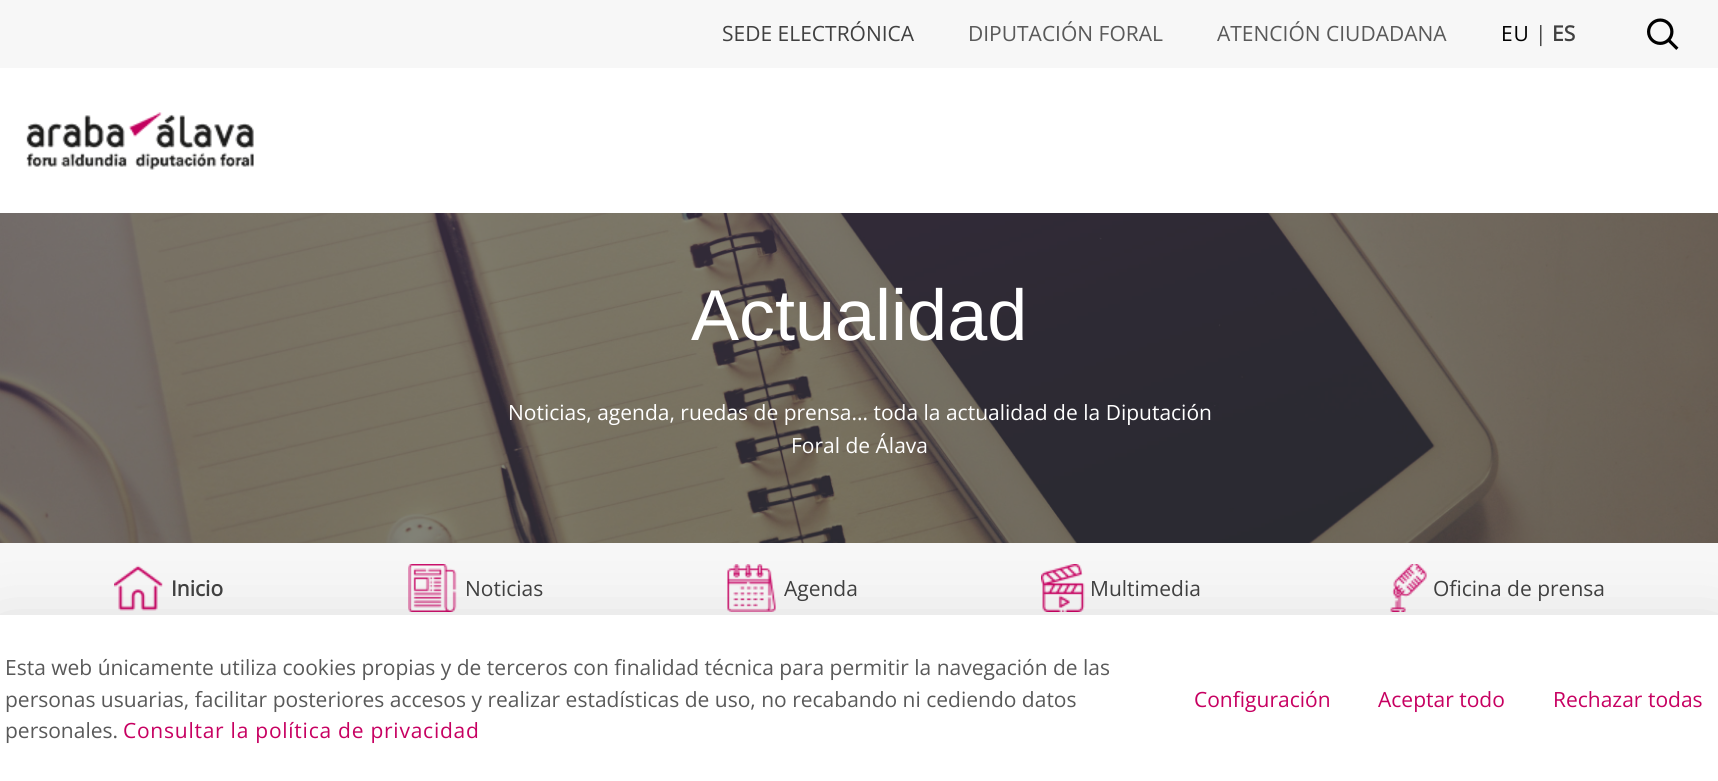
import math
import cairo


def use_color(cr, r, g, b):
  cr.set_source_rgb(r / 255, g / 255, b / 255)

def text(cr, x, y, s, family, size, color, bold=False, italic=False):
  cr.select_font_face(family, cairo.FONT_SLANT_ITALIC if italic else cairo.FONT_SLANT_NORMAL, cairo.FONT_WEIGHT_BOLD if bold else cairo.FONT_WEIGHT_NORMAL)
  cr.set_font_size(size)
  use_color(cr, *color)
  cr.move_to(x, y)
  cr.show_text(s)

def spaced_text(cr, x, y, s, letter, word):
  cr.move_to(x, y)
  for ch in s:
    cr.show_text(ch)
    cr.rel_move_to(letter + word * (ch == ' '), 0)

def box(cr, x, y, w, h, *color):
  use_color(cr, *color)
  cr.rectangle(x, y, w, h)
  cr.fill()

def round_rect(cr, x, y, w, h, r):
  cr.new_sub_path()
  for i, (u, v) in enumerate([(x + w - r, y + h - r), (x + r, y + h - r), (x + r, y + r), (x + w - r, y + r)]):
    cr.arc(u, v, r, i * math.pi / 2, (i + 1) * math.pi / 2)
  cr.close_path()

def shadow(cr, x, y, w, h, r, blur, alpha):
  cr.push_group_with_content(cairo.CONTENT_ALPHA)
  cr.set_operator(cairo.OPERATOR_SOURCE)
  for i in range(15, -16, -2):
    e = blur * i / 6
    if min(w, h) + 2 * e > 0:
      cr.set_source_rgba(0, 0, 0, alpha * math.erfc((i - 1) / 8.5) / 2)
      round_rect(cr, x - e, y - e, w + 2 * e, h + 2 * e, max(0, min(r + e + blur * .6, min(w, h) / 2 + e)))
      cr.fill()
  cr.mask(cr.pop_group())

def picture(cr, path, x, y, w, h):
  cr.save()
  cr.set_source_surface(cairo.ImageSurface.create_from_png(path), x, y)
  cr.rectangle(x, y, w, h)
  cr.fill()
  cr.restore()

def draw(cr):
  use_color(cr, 255, 255, 255)
  cr.paint()
  box(cr, 0, 0, 1718, 68, 247, 247, 247)
  picture(cr, "img_01.png", 1647, 18, 32, 32)
  picture(cr, "img_02.png", 26, 112, 228, 58)
  picture(cr, "img_03.png", 0, 213, 1718, 330)
  box(cr, 0, 543, 1718, 72, 247, 247, 247)
  picture(cr, "img_04.png", 114, 565, 49, 46)
  picture(cr, "img_05.png", 408, 564, 49, 48)
  picture(cr, "img_06.png", 727, 564, 49, 48)
  picture(cr, "img_07.png", 1041, 564, 44, 48)
  picture(cr, "img_08.png", 1390, 564, 37, 48)
  use_color(cr, 0, 0, 0)
  shadow(cr, 0, 639, 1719, 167, 0, 36, 0.18)
  box(cr, 0, 615, 1718, 166, 255, 255, 255)
  text(cr, 722, 41, "SEDE ELECTRÓNICA", "Open Sans", 21, (64, 64, 64))
  text(cr, 968, 41, "DIPUTACIÓN FORAL", "Open Sans", 21, (89, 89, 89))
  text(cr, 1217, 41, "ATENCIÓN CIUDADANA", "Open Sans", 21, (89, 89, 89))
  use_color(cr, 0, 0, 0)
  spaced_text(cr, 1501, 41, "EU", 0.75, 0)
  text(cr, 1535, 41, "|", "Open Sans", 21, (64, 64, 64))
  text(cr, 1552, 41, "ES", "Open Sans", 21, (64, 64, 64), bold=True)
  text(cr, 691, 340, "Actualidad", "Liberation Sans", 72, (255, 255, 255))
  text(cr, 508, 420, "Noticias, agenda, ruedas de prensa... toda la actualidad de la Diputación", "Open Sans", 21, (255, 255, 255))
  text(cr, 791, 453, "Foral de Álava", "Open Sans", 21, (255, 255, 255))
  text(cr, 171, 596, "Inicio", "Open Sans", 21, (64, 64, 64), bold=True)
  text(cr, 465, 596, "Noticias", "Open Sans", 21, (64, 64, 64))
  text(cr, 784, 596, "Agenda", "Open Sans", 21, (64, 64, 64))
  text(cr, 1090, 596, "Multimedia", "Open Sans", 21, (64, 64, 64))
  text(cr, 1433, 596, "Oficina de prensa", "Open Sans", 21, (64, 64, 64))
  text(cr, 5, 675, "Esta web únicamente utiliza cookies propias y de terceros con finalidad técnica para permitir la navegación de las", "Open Sans", 21, (89, 89, 89))
  text(cr, 5, 707, "personas usuarias, facilitar posteriores accesos y realizar estadísticas de uso, no recabando ni cediendo datos", "Open Sans", 21, (89, 89, 89))
  text(cr, 5, 738, "personales.", "Open Sans", 21, (89, 89, 89))
  use_color(cr, 199, 0, 97)
  spaced_text(cr, 123, 738, "Consultar la política de privacidad", 0.75, 0)
  text(cr, 1194, 707, "Configuración", "Open Sans", 21, (199, 0, 97))
  text(cr, 1378, 707, "Aceptar todo", "Open Sans", 21, (199, 0, 97))
  text(cr, 1553, 707, "Rechazar todas", "Open Sans", 21, (199, 0, 97))


surface = cairo.ImageSurface(cairo.FORMAT_RGB24, 1718, 781)
cr = cairo.Context(surface)
options = cairo.FontOptions()
options.set_hint_metrics(cairo.HINT_METRICS_OFF)
options.set_hint_style(cairo.HINT_STYLE_NONE)
cr.set_font_options(options)
cr.set_miter_limit(4)
draw(cr)
surface.write_to_png("out.png")
